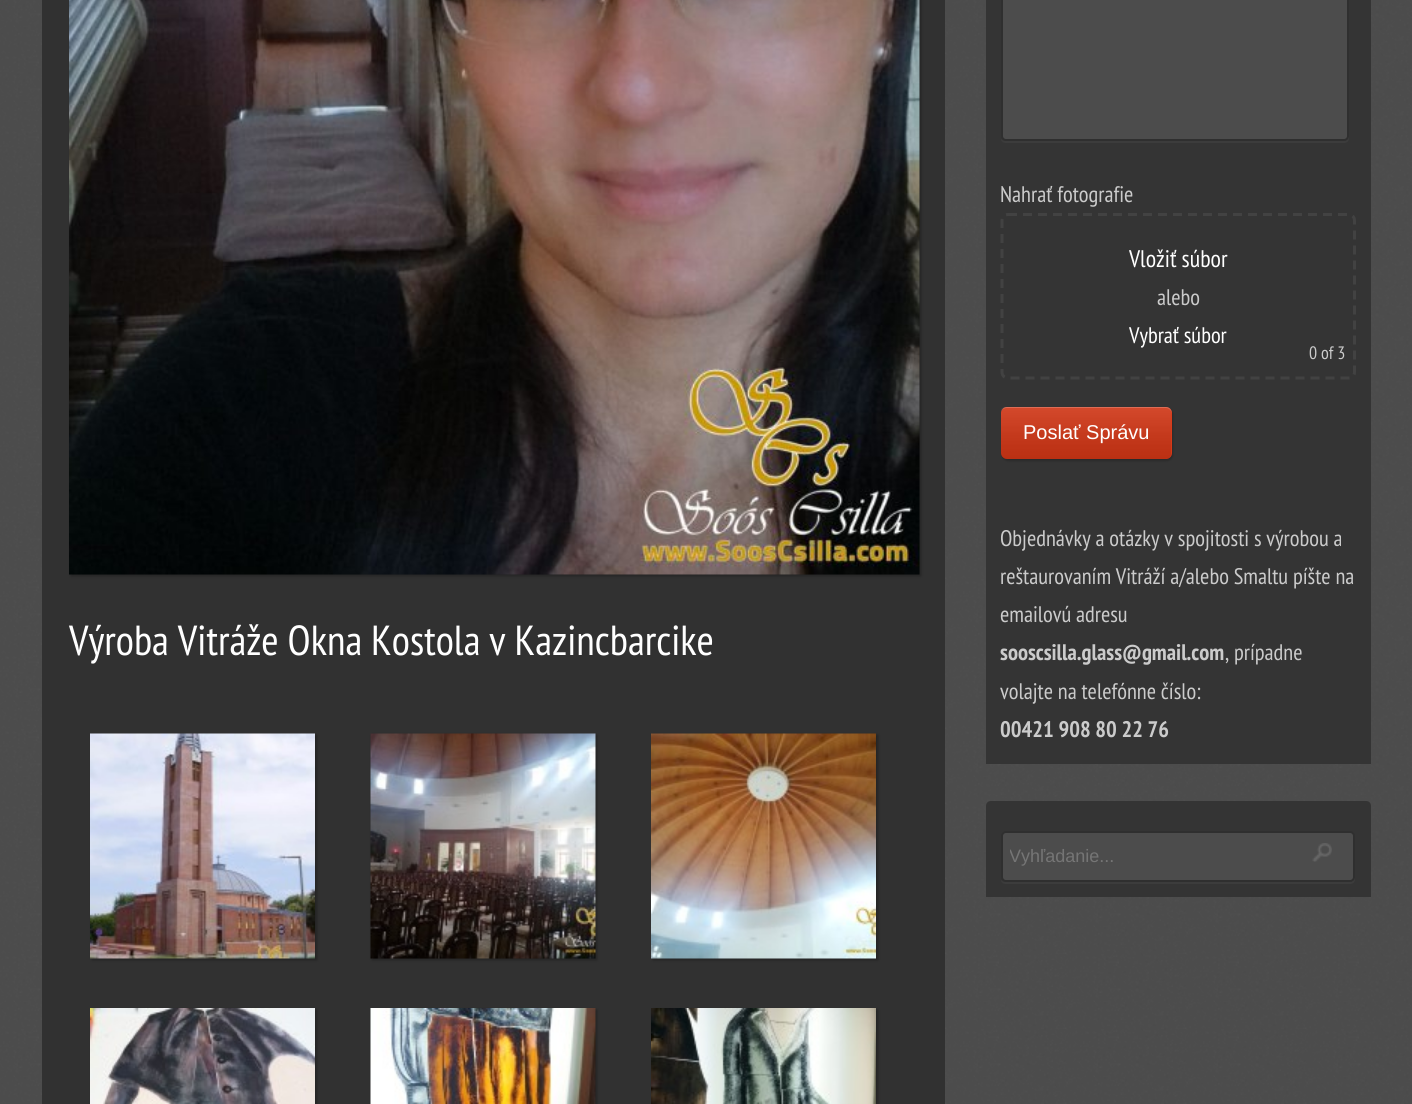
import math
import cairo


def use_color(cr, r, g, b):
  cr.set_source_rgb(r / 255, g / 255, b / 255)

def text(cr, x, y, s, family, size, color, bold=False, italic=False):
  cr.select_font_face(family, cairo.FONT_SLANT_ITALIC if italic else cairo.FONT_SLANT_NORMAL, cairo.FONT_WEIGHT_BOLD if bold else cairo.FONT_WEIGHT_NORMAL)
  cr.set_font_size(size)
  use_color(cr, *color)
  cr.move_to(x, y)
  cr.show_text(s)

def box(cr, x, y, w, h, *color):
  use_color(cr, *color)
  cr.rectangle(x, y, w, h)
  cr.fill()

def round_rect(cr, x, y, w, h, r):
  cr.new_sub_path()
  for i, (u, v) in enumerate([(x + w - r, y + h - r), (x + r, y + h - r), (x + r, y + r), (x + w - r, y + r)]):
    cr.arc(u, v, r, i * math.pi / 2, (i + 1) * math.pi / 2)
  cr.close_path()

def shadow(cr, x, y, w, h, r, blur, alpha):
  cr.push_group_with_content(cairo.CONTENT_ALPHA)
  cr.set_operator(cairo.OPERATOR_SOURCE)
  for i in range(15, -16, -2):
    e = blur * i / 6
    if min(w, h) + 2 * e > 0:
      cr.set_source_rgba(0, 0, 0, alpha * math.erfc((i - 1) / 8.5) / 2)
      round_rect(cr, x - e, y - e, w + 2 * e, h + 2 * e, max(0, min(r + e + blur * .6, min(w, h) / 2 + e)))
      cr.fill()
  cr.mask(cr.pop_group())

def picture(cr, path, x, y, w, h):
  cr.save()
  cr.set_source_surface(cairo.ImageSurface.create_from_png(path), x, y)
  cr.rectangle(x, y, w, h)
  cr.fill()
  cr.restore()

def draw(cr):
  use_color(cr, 106, 106, 106)
  cr.paint()
  picture(cr, "img_01.png", 0, 0, 1412, 1104)
  box(cr, 42, 0, 903, 1104, 49, 49, 49)
  use_color(cr, 0, 0, 0)
  shadow(cr, 71, -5, 850, 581, 0, 1.5, 0.3)
  picture(cr, "img_02.png", 69, 0, 851, 575)
  shadow(cr, 92, 735, 225, 225, 0, 1.5, 0.3)
  picture(cr, "img_03.png", 90, 733, 225, 226)
  shadow(cr, 372, 735, 225, 225, 0, 1.5, 0.3)
  picture(cr, "img_04.png", 370, 733, 226, 226)
  shadow(cr, 653, 735, 225, 225, 0, 1.5, 0.3)
  picture(cr, "img_05.png", 651, 733, 225, 226)
  shadow(cr, 92, 1010, 225, 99, 0, 1.5, 0.3)
  picture(cr, "img_06.png", 90, 1008, 225, 96)
  shadow(cr, 372, 1010, 225, 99, 0, 1.5, 0.3)
  picture(cr, "img_07.png", 370, 1008, 226, 96)
  shadow(cr, 653, 1010, 225, 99, 0, 1.5, 0.3)
  picture(cr, "img_08.png", 651, 1008, 225, 96)
  box(cr, 986, 0, 385, 764, 52, 52, 52)
  use_color(cr, 60, 60, 60)
  cr.new_path()
  cr.move_to(1001, 139)
  cr.curve_to(1001, 141, 1003, 143, 1006, 143)
  cr.line_to(1344, 143)
  cr.curve_to(1347, 143, 1349, 141, 1349, 138)
  cr.line_to(1349, -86)
  cr.line_to(1348, -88)
  cr.line_to(1348, 136)
  cr.curve_to(1348, 139, 1346, 141, 1344, 141)
  cr.line_to(1005, 141)
  cr.curve_to(1003, 141, 1002, 140, 1001, 139)
  cr.close_path()
  cr.fill()
  use_color(cr, 76, 76, 76)
  round_rect(cr, 1002, -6, 346, 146, 4)
  cr.fill_preserve()
  use_color(cr, 47, 47, 47)
  cr.stroke()
  cr.new_path()
  cr.move_to(1008, 214.5)
  cr.line_to(1348.5, 214.5)
  cr.curve_to(1352, 214.5, 1354.5, 217, 1354.5, 220.5)
  cr.line_to(1354.5, 372)
  cr.curve_to(1354.5, 375.5, 1352, 378, 1348.5, 378)
  cr.line_to(1008, 378)
  cr.curve_to(1004.5, 378, 1002, 375.5, 1002, 372)
  cr.line_to(1002, 220.5)
  cr.curve_to(1002, 217, 1004.5, 214.5, 1008, 214.5)
  cr.close_path()
  use_color(cr, 66, 66, 66)
  cr.set_line_width(3)
  cr.set_dash([9, 6])
  cr.stroke()
  use_color(cr, 0, 0, 0)
  shadow(cr, 1002, 408, 171, 53, 6, 1, 0.2)
  use_color(cr, 222, 57, 23)
  round_rect(cr, 1001, 407, 171, 52, 6)
  cr.fill()
  picture(cr, "img_09.png", 1001, 407, 171, 52)
  cr.set_source_rgba(1, 1, 1, 0.2)
  cr.new_path()
  cr.move_to(1006, 408)
  cr.line_to(1166, 408)
  cr.curve_to(1169, 408, 1172, 411, 1172, 414)
  cr.line_to(1172, 413)
  cr.curve_to(1172, 410, 1169, 407, 1166, 407)
  cr.line_to(1007, 407)
  cr.curve_to(1005, 407, 1003, 408, 1002, 410)
  cr.curve_to(1003, 409, 1005, 408, 1006, 408)
  cr.close_path()
  cr.fill()
  use_color(cr, 52, 52, 52)
  cr.new_path()
  cr.move_to(991, 801)
  cr.line_to(1366, 801)
  cr.curve_to(1369, 801, 1371, 803, 1371, 806)
  cr.line_to(1371, 897)
  cr.line_to(986, 897)
  cr.line_to(986, 806)
  cr.curve_to(986, 803, 988, 801, 991, 801)
  cr.close_path()
  cr.fill()
  use_color(cr, 60, 60, 60)
  cr.new_path()
  cr.move_to(1001, 880)
  cr.curve_to(1001, 882, 1003, 884, 1006, 884)
  cr.line_to(1350, 884)
  cr.curve_to(1353, 884, 1355, 882, 1355, 879)
  cr.line_to(1355, 838)
  cr.line_to(1354, 836)
  cr.line_to(1354, 878)
  cr.curve_to(1354, 880, 1352, 882, 1350, 882)
  cr.line_to(1005, 882)
  cr.curve_to(1003, 882, 1002, 881, 1001, 880)
  cr.close_path()
  cr.fill()
  use_color(cr, 76, 76, 76)
  round_rect(cr, 1002, 832, 352, 49, 4)
  cr.fill_preserve()
  use_color(cr, 47, 47, 47)
  cr.set_line_width(2)
  cr.set_dash([])
  cr.stroke()
  picture(cr, "img_10.png", 1312, 843, 20, 19)
  text(cr, 69, 655, "Výroba Vitráže Okna Kostola v Kazincbarcike", "PT Sans Narrow", 42, (255, 255, 255))
  text(cr, 1000, 202, "Nahrať fotografie", "PT Sans Narrow", 22.5, (203, 203, 203))
  text(cr, 1129, 267, "Vložiť súbor", "PT Sans Narrow", 24, (255, 255, 255))
  text(cr, 1157, 305, "alebo", "PT Sans Narrow", 22.5, (203, 203, 203))
  text(cr, 1129, 343, "Vybrať súbor", "PT Sans Narrow", 22.5, (255, 255, 255))
  text(cr, 1309, 359, "0 of 3", "PT Sans Narrow", 18, (203, 203, 203))
  text(cr, 1023, 439, "Poslať Správu", "Liberation Sans", 20, (255, 255, 255))
  text(cr, 1000, 546, "Objednávky a otázky v spojitosti s výrobou a", "PT Sans Narrow", 22.5, (203, 203, 203))
  text(cr, 1000, 584, "reštaurovaním Vitráží a/alebo Smaltu píšte na", "PT Sans Narrow", 22.5, (203, 203, 203))
  text(cr, 1000, 622, "emailovú adresu", "PT Sans Narrow", 22.5, (203, 203, 203))
  text(cr, 1000, 660, "sooscsilla.glass@gmail.com", "PT Sans Narrow", 22.5, (203, 203, 203), bold=True)
  text(cr, 1225, 660, ", prípadne", "PT Sans Narrow", 22.5, (203, 203, 203))
  text(cr, 1000, 699, "volajte na telefónne číslo:", "PT Sans Narrow", 22.5, (203, 203, 203))
  text(cr, 1000, 737, "00421 908 80 22 76", "PT Sans Narrow", 22.5, (203, 203, 203), bold=True)
  cr.save()
  cr.rectangle(1010, 845, 337, 21)
  cr.clip()
  text(cr, 1009, 862, "Vyhľadanie...", "Liberation Sans", 18, (117, 117, 117))
  cr.restore()


surface = cairo.ImageSurface(cairo.FORMAT_RGB24, 1412, 1104)
cr = cairo.Context(surface)
options = cairo.FontOptions()
options.set_hint_metrics(cairo.HINT_METRICS_OFF)
options.set_hint_style(cairo.HINT_STYLE_NONE)
cr.set_font_options(options)
cr.set_miter_limit(4)
draw(cr)
surface.write_to_png("out.png")
